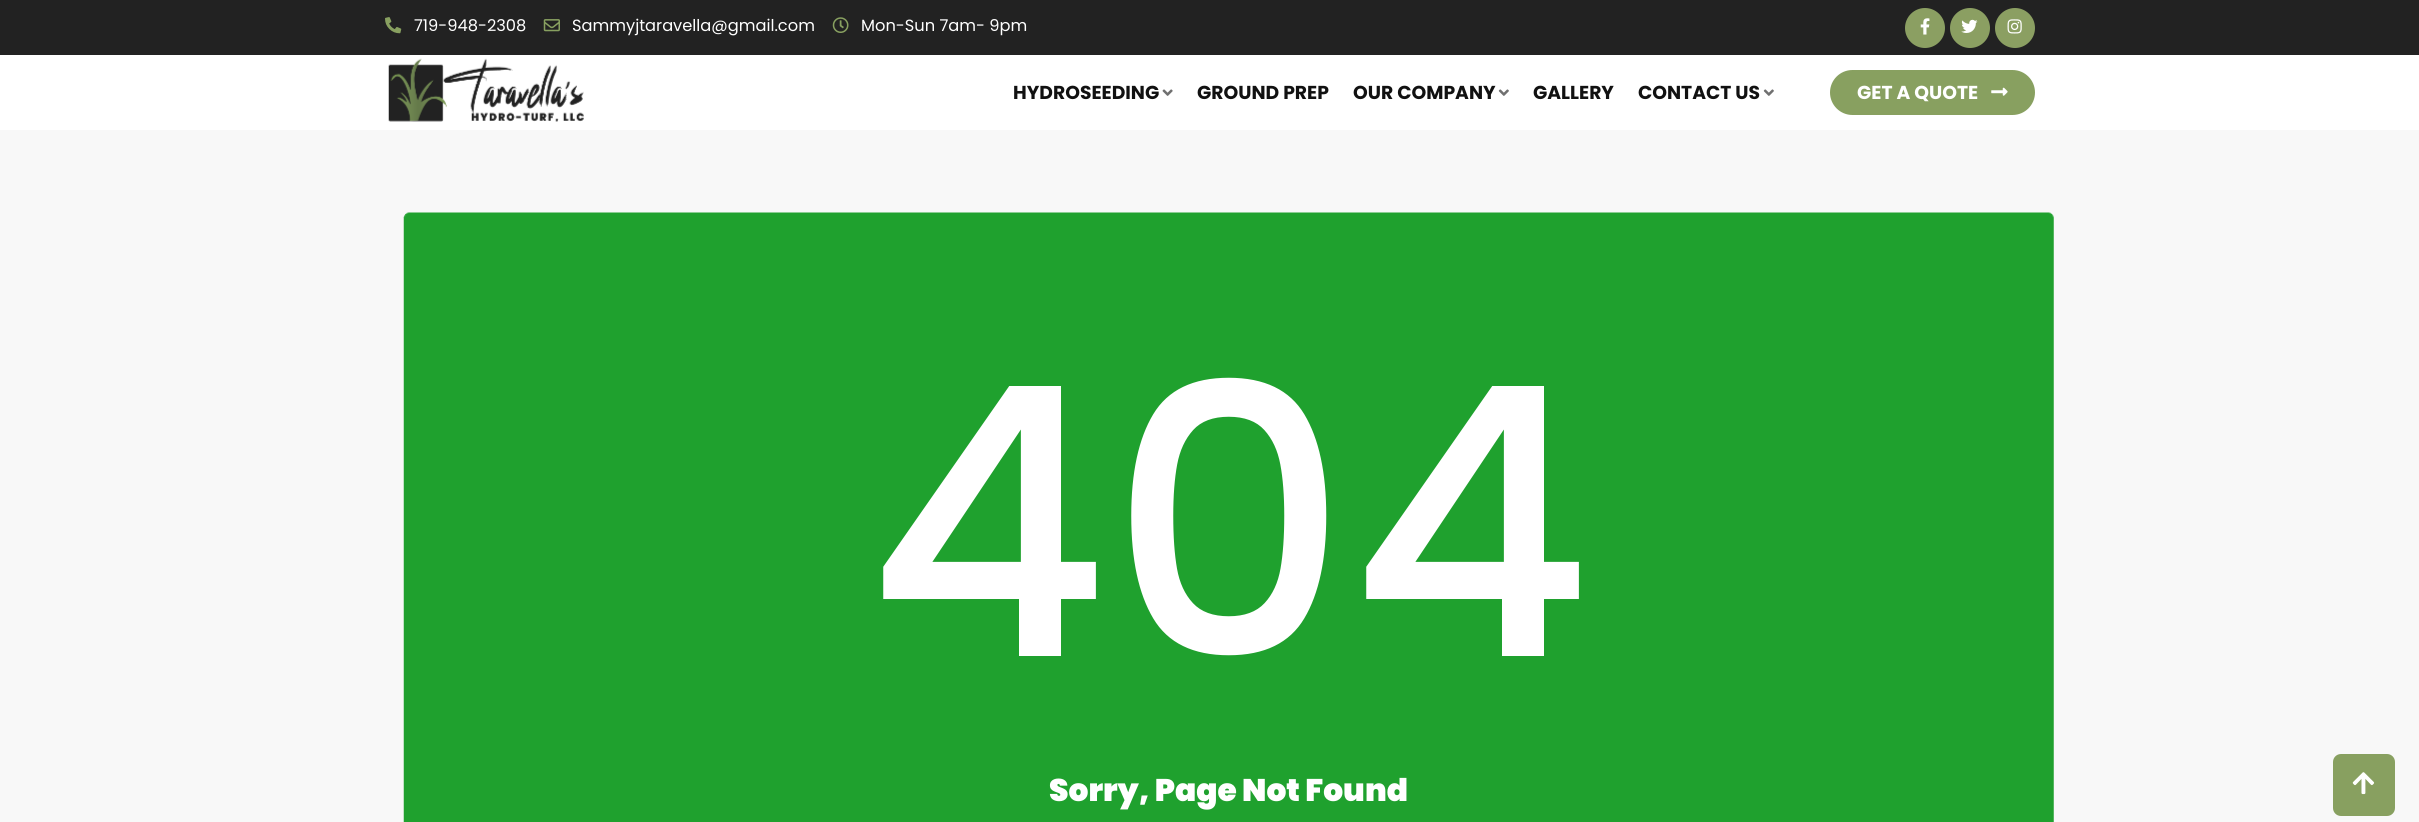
import math
import cairo


def use_color(cr, r, g, b):
  cr.set_source_rgb(r / 255, g / 255, b / 255)

def text(cr, x, y, s, family, size, color, bold=False, italic=False):
  cr.select_font_face(family, cairo.FONT_SLANT_ITALIC if italic else cairo.FONT_SLANT_NORMAL, cairo.FONT_WEIGHT_BOLD if bold else cairo.FONT_WEIGHT_NORMAL)
  cr.set_font_size(size)
  use_color(cr, *color)
  cr.move_to(x, y)
  cr.show_text(s)

def box(cr, x, y, w, h, *color):
  use_color(cr, *color)
  cr.rectangle(x, y, w, h)
  cr.fill()

def round_rect(cr, x, y, w, h, r):
  cr.new_sub_path()
  for i, (u, v) in enumerate([(x + w - r, y + h - r), (x + r, y + h - r), (x + r, y + r), (x + w - r, y + r)]):
    cr.arc(u, v, r, i * math.pi / 2, (i + 1) * math.pi / 2)
  cr.close_path()

def picture(cr, path, x, y, w, h):
  cr.save()
  cr.set_source_surface(cairo.ImageSurface.create_from_png(path), x, y)
  cr.rectangle(x, y, w, h)
  cr.fill()
  cr.restore()

def draw(cr):
  use_color(cr, 248, 248, 248)
  cr.paint()
  box(cr, 0, 55, 2419, 75, 255, 255, 255)
  box(cr, 0, 0, 2419, 55, 34, 34, 34)
  picture(cr, "img_01.png", 385, 17, 17, 17)
  picture(cr, "img_02.png", 543, 19, 17, 13)
  picture(cr, "img_03.png", 832, 17, 17, 16)
  use_color(cr, 139, 159, 98)
  cr.arc(1925, 28, 20, 0, 2 * math.pi)
  cr.fill()
  picture(cr, "img_04.png", 1920, 18, 10, 17)
  cr.arc(1970, 28, 20, 0, 2 * math.pi)
  cr.fill()
  picture(cr, "img_05.png", 1961, 19, 17, 14)
  cr.arc(2015, 28, 20, 0, 2 * math.pi)
  cr.fill()
  picture(cr, "img_06.png", 2007, 19, 15, 15)
  picture(cr, "img_07.png", 388, 58, 196, 64)
  picture(cr, "img_08.png", 1162, 89, 11, 7)
  picture(cr, "img_09.png", 1498, 89, 11, 7)
  picture(cr, "img_09.png", 1763, 89, 11, 7)
  use_color(cr, 136, 160, 96)
  round_rect(cr, 1831.5, 71.5, 202, 42, 21)
  cr.fill_preserve()
  cr.set_line_width(3)
  cr.stroke()
  picture(cr, "img_10.png", 1991, 87, 17, 9)
  picture(cr, "img_11.png", 403, 212, 1651, 610)
  round_rect(cr, 2333, 754, 62, 62, 8)
  cr.fill()
  picture(cr, "img_12.png", 2352, 772, 23, 23)
  text(cr, 414, 31, "719-948-2308", "Poppins", 16.25, (255, 255, 255))
  text(cr, 572, 31, "Sammyjtaravella@gmail.com", "Poppins", 16.25, (255, 255, 255))
  text(cr, 861, 31, "Mon-Sun 7am- 9pm", "Poppins", 16.25, (255, 255, 255))
  text(cr, 1013, 99, "HYDROSEEDING", "Poppins", 18.75, (17, 17, 17), bold=True)
  text(cr, 1197, 99, "GROUND PREP", "Poppins", 18.75, (17, 17, 17), bold=True)
  text(cr, 1353, 99, "OUR COMPANY", "Poppins", 18.75, (17, 17, 17), bold=True)
  text(cr, 1533, 99, "GALLERY", "Poppins", 18.75, (17, 17, 17), bold=True)
  text(cr, 1638, 99, "CONTACT US", "Poppins", 18.75, (17, 17, 17), bold=True)
  text(cr, 1857, 99, "GET A QUOTE", "Poppins", 18.75, (255, 255, 255), bold=True)
  text(cr, 866, 656, "404", "Poppins Medium", 375, (255, 255, 255))
  text(cr, 1049, 801, "Sorry, Page Not Found", "Poppins Black", 31.25, (255, 255, 255))


surface = cairo.ImageSurface(cairo.FORMAT_RGB24, 2419, 822)
cr = cairo.Context(surface)
options = cairo.FontOptions()
options.set_hint_metrics(cairo.HINT_METRICS_OFF)
options.set_hint_style(cairo.HINT_STYLE_NONE)
cr.set_font_options(options)
cr.set_miter_limit(4)
draw(cr)
surface.write_to_png("out.png")
